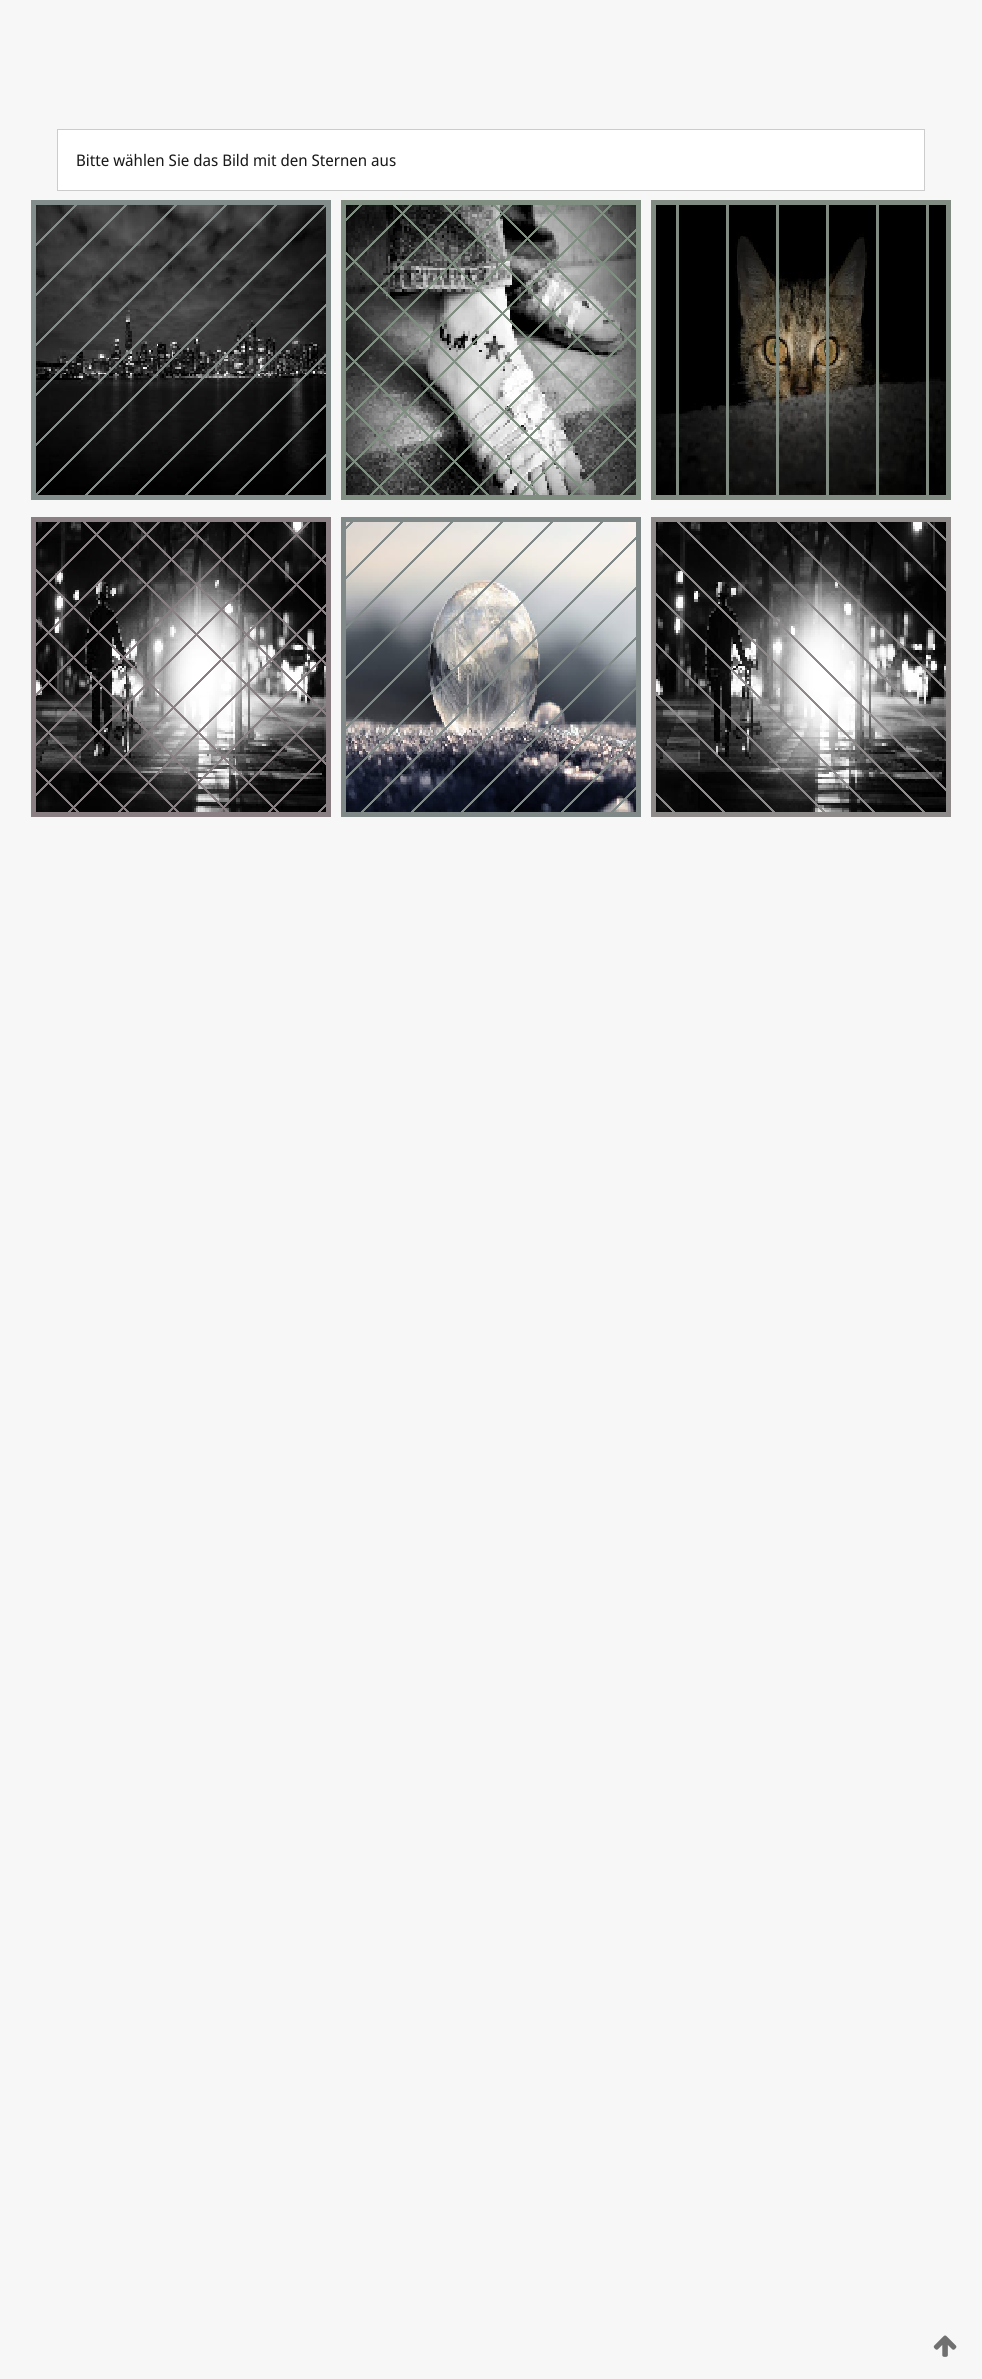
import math
import cairo


def use_color(cr, r, g, b):
  cr.set_source_rgb(r / 255, g / 255, b / 255)

def text(cr, x, y, s, family, size, color, bold=False, italic=False):
  cr.select_font_face(family, cairo.FONT_SLANT_ITALIC if italic else cairo.FONT_SLANT_NORMAL, cairo.FONT_WEIGHT_BOLD if bold else cairo.FONT_WEIGHT_NORMAL)
  cr.set_font_size(size)
  use_color(cr, *color)
  cr.move_to(x, y)
  cr.show_text(s)

def picture(cr, path, x, y, w, h):
  cr.save()
  cr.set_source_surface(cairo.ImageSurface.create_from_png(path), x, y)
  cr.rectangle(x, y, w, h)
  cr.fill()
  cr.restore()

def draw(cr):
  use_color(cr, 247, 247, 247)
  cr.paint()
  use_color(cr, 255, 255, 255)
  cr.rectangle(57.5, 129.5, 867, 61)
  cr.fill_preserve()
  use_color(cr, 204, 204, 204)
  cr.set_line_width(1)
  cr.stroke()
  picture(cr, "img_01.png", 31, 200, 300, 300)
  picture(cr, "img_02.png", 341, 200, 300, 300)
  picture(cr, "img_03.png", 651, 200, 300, 300)
  picture(cr, "img_04.png", 31, 517, 300, 300)
  picture(cr, "img_05.png", 341, 517, 300, 300)
  picture(cr, "img_06.png", 651, 517, 300, 300)
  picture(cr, "img_07.png", 933, 2335, 24, 22)
  text(cr, 76, 166, "Bitte wählen Sie das Bild mit den Sternen aus", "Noto Sans Display", 16, (26, 26, 26))


surface = cairo.ImageSurface(cairo.FORMAT_RGB24, 982, 2379)
cr = cairo.Context(surface)
options = cairo.FontOptions()
options.set_hint_metrics(cairo.HINT_METRICS_OFF)
options.set_hint_style(cairo.HINT_STYLE_NONE)
cr.set_font_options(options)
cr.set_miter_limit(4)
draw(cr)
surface.write_to_png("out.png")
